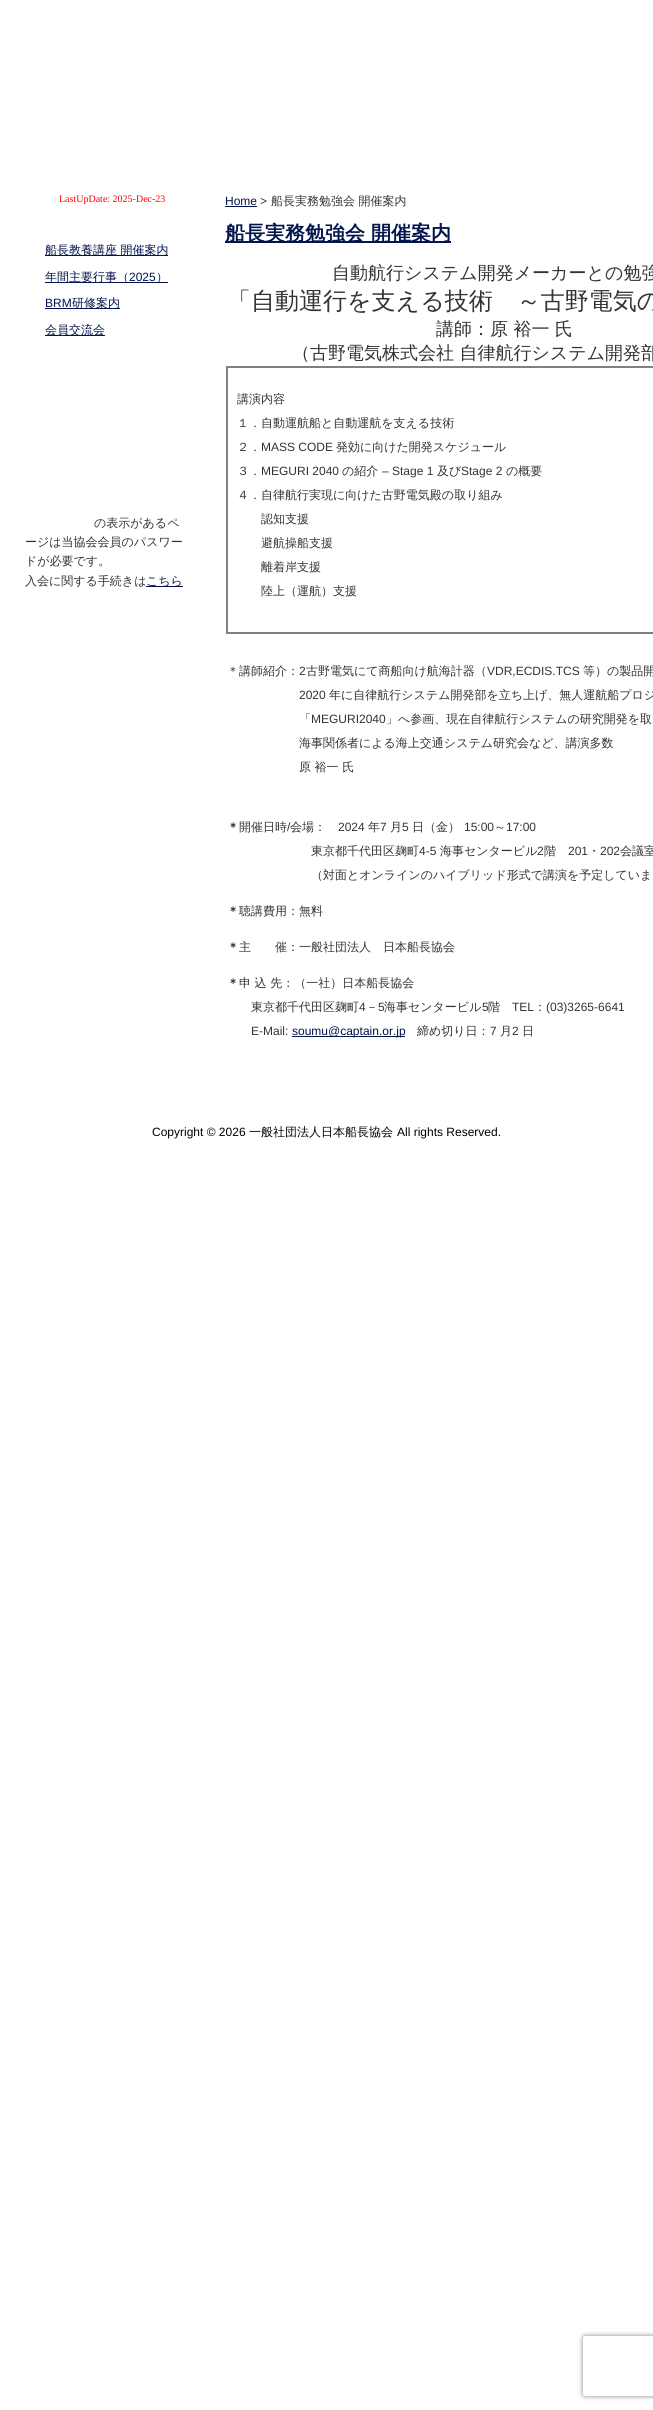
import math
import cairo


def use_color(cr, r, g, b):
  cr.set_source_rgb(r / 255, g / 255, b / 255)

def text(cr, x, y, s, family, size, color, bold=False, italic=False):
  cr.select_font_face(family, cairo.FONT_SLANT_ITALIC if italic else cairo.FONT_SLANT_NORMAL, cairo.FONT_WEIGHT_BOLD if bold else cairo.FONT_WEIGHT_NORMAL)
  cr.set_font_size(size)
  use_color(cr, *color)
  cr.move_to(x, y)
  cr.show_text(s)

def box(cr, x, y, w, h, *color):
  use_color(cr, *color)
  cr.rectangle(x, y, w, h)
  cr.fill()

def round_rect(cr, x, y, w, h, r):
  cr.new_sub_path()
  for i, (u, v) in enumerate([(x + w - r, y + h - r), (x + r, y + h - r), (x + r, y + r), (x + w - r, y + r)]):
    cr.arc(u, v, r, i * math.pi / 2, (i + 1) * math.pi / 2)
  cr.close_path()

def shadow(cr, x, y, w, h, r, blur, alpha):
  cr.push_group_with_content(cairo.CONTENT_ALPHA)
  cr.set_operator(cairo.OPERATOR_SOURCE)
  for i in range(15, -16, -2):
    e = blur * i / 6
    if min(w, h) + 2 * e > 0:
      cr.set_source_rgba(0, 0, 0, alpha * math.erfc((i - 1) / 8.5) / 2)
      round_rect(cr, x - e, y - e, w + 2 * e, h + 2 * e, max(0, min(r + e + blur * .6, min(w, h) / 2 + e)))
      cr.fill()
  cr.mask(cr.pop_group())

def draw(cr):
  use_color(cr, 255, 255, 255)
  cr.paint()
  box(cr, 225, 206, 32, 1, 1, 20, 75)
  box(cr, 225, 241, 226, 2, 1, 20, 75)
  box(cr, 226, 366, 427, 2, 128, 128, 128)
  box(cr, 226, 632, 427, 2, 128, 128, 128)
  box(cr, 226, 366, 2, 268, 128, 128, 128)
  box(cr, 292, 1036, 113, 1, 1, 20, 75)
  box(cr, 45, 255, 123, 1, 1, 20, 75)
  box(cr, 45, 282, 123, 1, 1, 20, 75)
  box(cr, 45, 308, 75, 1, 1, 20, 75)
  box(cr, 45, 335, 60, 1, 1, 20, 75)
  box(cr, 146, 586, 37, 1, 1, 20, 75)
  cr.save()
  cr.set_fill_rule(cairo.FILL_RULE_EVEN_ODD)
  cr.new_path()
  cr.move_to(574, 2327)
  cr.line_to(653, 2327)
  cr.line_to(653, 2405)
  cr.line_to(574, 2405)
  cr.close_path()
  cr.move_to(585, 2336)
  cr.line_to(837, 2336)
  cr.curve_to(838, 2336, 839, 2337, 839, 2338)
  cr.line_to(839, 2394)
  cr.curve_to(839, 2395, 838, 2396, 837, 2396)
  cr.line_to(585, 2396)
  cr.curve_to(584, 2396, 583, 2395, 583, 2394)
  cr.line_to(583, 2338)
  cr.curve_to(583, 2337, 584, 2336, 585, 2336)
  cr.close_path()
  cr.clip()
  use_color(cr, 128, 128, 128)
  shadow(cr, 583, 2336, 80, 60, 2, 2.5, 1)
  cr.restore()
  text(cr, 59, 202, "LastUpDate: 2025-Dec-23", "Liberation Serif", 10, (255, 0, 0))
  text(cr, 225, 205, "Home", "Liberation Sans", 12, (1, 20, 75))
  text(cr, 260, 205, ">", "Liberation Sans", 12, (51, 51, 51))
  text(cr, 271, 205, "船長実務勉強会 開催案内", "WenQuanYi Zen Hei Medium", 12, (51, 51, 51))
  text(cr, 225, 240, "船長実務勉強会 開催案内", "WenQuanYi Zen Hei", 20, (1, 20, 75), bold=True)
  text(cr, 332, 279, "自動航行システム開発メーカーとの勉強", "WenQuanYi Zen Hei Medium", 18, (51, 51, 51))
  text(cr, 227, 309, "「自動運行を支える技術　～古野電気の", "WenQuanYi Zen Hei Medium", 24, (51, 51, 51))
  text(cr, 436, 335, "講師：原 裕一 氏", "WenQuanYi Zen Hei Medium", 18, (51, 51, 51))
  text(cr, 292, 359, "（古野電気株式会社 自律航行システム開発部", "WenQuanYi Zen Hei Medium", 18, (51, 51, 51))
  text(cr, 237, 403, "講演内容", "WenQuanYi Zen Hei Medium", 12, (51, 51, 51))
  text(cr, 237, 427, "１．自動運航船と自動運航を支える技術", "WenQuanYi Zen Hei Medium", 12, (51, 51, 51))
  text(cr, 237, 451, "２．", "WenQuanYi Zen Hei Medium", 12, (51, 51, 51))
  text(cr, 261, 451, "MASS CODE", "Liberation Sans", 12, (51, 51, 51))
  text(cr, 336, 451, "発効に向けた開発スケジュール", "WenQuanYi Zen Hei Medium", 12, (51, 51, 51))
  text(cr, 237, 475, "３．", "WenQuanYi Zen Hei Medium", 12, (51, 51, 51))
  text(cr, 261, 475, "MEGURI 2040", "Liberation Sans", 12, (51, 51, 51))
  text(cr, 342, 475, "の紹介", "WenQuanYi Zen Hei Medium", 12, (51, 51, 51))
  text(cr, 382, 475, "– Stage 1", "Liberation Sans", 12, (51, 51, 51))
  text(cr, 437, 475, "及び", "WenQuanYi Zen Hei Medium", 12, (51, 51, 51))
  text(cr, 461, 475, "Stage 2", "Liberation Sans", 12, (51, 51, 51))
  text(cr, 506, 475, "の概要", "WenQuanYi Zen Hei Medium", 12, (51, 51, 51))
  text(cr, 237, 499, "４．自律航行実現に向けた古野電気殿の取り組み", "WenQuanYi Zen Hei Medium", 12, (51, 51, 51))
  text(cr, 261, 523, "認知支援", "WenQuanYi Zen Hei Medium", 12, (51, 51, 51))
  text(cr, 261, 547, "避航操船支援", "WenQuanYi Zen Hei Medium", 12, (51, 51, 51))
  text(cr, 261, 571, "離着岸支援", "WenQuanYi Zen Hei Medium", 12, (51, 51, 51))
  text(cr, 261, 595, "陸上（運航）支援", "WenQuanYi Zen Hei Medium", 12, (51, 51, 51))
  text(cr, 227, 675, "＊講師紹介：", "WenQuanYi Zen Hei Medium", 12, (51, 51, 51))
  text(cr, 299, 675, "2", "Liberation Sans", 12, (51, 51, 51))
  text(cr, 306, 675, "古野電気にて商船向け航海計器（", "WenQuanYi Zen Hei Medium", 12, (51, 51, 51))
  text(cr, 487, 675, "VDR,ECDIS.TCS", "Liberation Sans", 12, (51, 51, 51))
  text(cr, 583, 675, "等）の製品開", "WenQuanYi Zen Hei Medium", 12, (51, 51, 51))
  text(cr, 299, 699, "2020", "Liberation Sans", 12, (51, 51, 51))
  text(cr, 329, 699, "年に自律航行システム開発部を立ち上げ、無人運航船プロジ", "WenQuanYi Zen Hei Medium", 12, (51, 51, 51))
  text(cr, 299, 723, "「", "WenQuanYi Zen Hei Medium", 12, (51, 51, 51))
  text(cr, 311, 723, "MEGURI2040", "Liberation Sans", 12, (51, 51, 51))
  text(cr, 386, 723, "」へ参画、現在自律航行システムの研究開発を取", "WenQuanYi Zen Hei Medium", 12, (51, 51, 51))
  text(cr, 299, 747, "海事関係者による海上交通システム研究会など、講演多数", "WenQuanYi Zen Hei Medium", 12, (51, 51, 51))
  text(cr, 299, 771, "原 裕一 氏", "WenQuanYi Zen Hei Medium", 12, (51, 51, 51))
  text(cr, 227, 831, "＊", "WenQuanYi Zen Hei", 12, (51, 51, 51), bold=True)
  text(cr, 239, 831, "開催日時", "WenQuanYi Zen Hei Medium", 12, (51, 51, 51))
  text(cr, 287, 831, "/", "Liberation Sans", 12, (51, 51, 51))
  text(cr, 290, 831, "会場：", "WenQuanYi Zen Hei Medium", 12, (51, 51, 51))
  text(cr, 338, 831, "2024", "Liberation Sans", 12, (51, 51, 51))
  text(cr, 368, 831, "年", "WenQuanYi Zen Hei Medium", 12, (51, 51, 51))
  text(cr, 380, 831, "7", "Liberation Sans", 12, (51, 51, 51))
  text(cr, 390, 831, "月", "WenQuanYi Zen Hei Medium", 12, (51, 51, 51))
  text(cr, 402, 831, "5", "Liberation Sans", 12, (51, 51, 51))
  text(cr, 412, 831, "日（金）", "WenQuanYi Zen Hei Medium", 12, (51, 51, 51))
  text(cr, 464, 831, "15:00", "Liberation Sans", 12, (51, 51, 51))
  text(cr, 494, 831, "～", "WenQuanYi Zen Hei Medium", 12, (51, 51, 51))
  text(cr, 506, 831, "17:00", "Liberation Sans", 12, (51, 51, 51))
  text(cr, 311, 855, "東京都千代田区麹町", "WenQuanYi Zen Hei Medium", 12, (51, 51, 51))
  text(cr, 419, 855, "4-5", "Liberation Sans", 12, (51, 51, 51))
  text(cr, 440, 855, "海事センタービル", "WenQuanYi Zen Hei Medium", 12, (51, 51, 51))
  text(cr, 537, 855, "2", "Liberation Sans", 12, (51, 51, 51))
  text(cr, 544, 855, "階", "WenQuanYi Zen Hei Medium", 12, (51, 51, 51))
  text(cr, 568, 855, "201", "Liberation Sans", 12, (51, 51, 51))
  text(cr, 588, 855, "・", "WenQuanYi Zen Hei Medium", 12, (51, 51, 51))
  text(cr, 600, 855, "202", "Liberation Sans", 12, (51, 51, 51))
  text(cr, 620, 855, "会議室", "WenQuanYi Zen Hei Medium", 12, (51, 51, 51))
  text(cr, 311, 879, "（対面とオンラインのハイブリッド形式で講演を予定していま", "WenQuanYi Zen Hei Medium", 12, (51, 51, 51))
  text(cr, 227, 915, "＊", "WenQuanYi Zen Hei", 12, (51, 51, 51), bold=True)
  text(cr, 239, 915, "聴講費用：無料", "WenQuanYi Zen Hei Medium", 12, (51, 51, 51))
  text(cr, 227, 951, "＊", "WenQuanYi Zen Hei", 12, (51, 51, 51), bold=True)
  text(cr, 239, 951, "主　　催：一般社団法人　日本船長協会", "WenQuanYi Zen Hei Medium", 12, (51, 51, 51))
  text(cr, 227, 987, "＊", "WenQuanYi Zen Hei", 12, (51, 51, 51), bold=True)
  text(cr, 239, 987, "申 込 先：（一社）日本船長協会", "WenQuanYi Zen Hei Medium", 12, (51, 51, 51))
  text(cr, 251, 1011, "東京都千代田区麹町", "WenQuanYi Zen Hei Medium", 12, (51, 51, 51))
  text(cr, 359, 1011, "4", "Liberation Sans", 12, (51, 51, 51))
  text(cr, 366, 1011, "－", "WenQuanYi Zen Hei Medium", 12, (51, 51, 51))
  text(cr, 378, 1011, "5", "Liberation Sans", 12, (51, 51, 51))
  text(cr, 384, 1011, "海事センタービル", "WenQuanYi Zen Hei Medium", 12, (51, 51, 51))
  text(cr, 482, 1011, "5", "Liberation Sans", 12, (51, 51, 51))
  text(cr, 488, 1011, "階", "WenQuanYi Zen Hei Medium", 12, (51, 51, 51))
  text(cr, 512, 1011, "TEL", "Liberation Sans", 12, (51, 51, 51))
  text(cr, 534, 1011, "：", "WenQuanYi Zen Hei Medium", 12, (51, 51, 51))
  text(cr, 546, 1011, "(03)3265-6641", "Liberation Sans", 12, (51, 51, 51))
  text(cr, 251, 1035, "E-Mail:", "Liberation Sans", 12, (51, 51, 51))
  text(cr, 292, 1035, "soumu@captain.or.jp", "Liberation Sans", 12, (1, 20, 75))
  text(cr, 417, 1035, "締め切り日：", "WenQuanYi Zen Hei Medium", 12, (51, 51, 51))
  text(cr, 490, 1035, "7", "Liberation Sans", 12, (51, 51, 51))
  text(cr, 500, 1035, "月", "WenQuanYi Zen Hei Medium", 12, (51, 51, 51))
  text(cr, 512, 1035, "2", "Liberation Sans", 12, (51, 51, 51))
  text(cr, 522, 1035, "日", "WenQuanYi Zen Hei Medium", 12, (51, 51, 51))
  text(cr, 45, 254, "船長教養講座 開催案内", "WenQuanYi Zen Hei Medium", 12, (1, 20, 75))
  text(cr, 45, 281, "年間主要行事（", "WenQuanYi Zen Hei Medium", 12, (1, 20, 75))
  text(cr, 129, 281, "2025", "Liberation Sans", 12, (1, 20, 75))
  text(cr, 156, 281, "）", "WenQuanYi Zen Hei Medium", 12, (1, 20, 75))
  text(cr, 45, 307, "BRM", "Liberation Sans", 12, (1, 20, 75))
  text(cr, 72, 307, "研修案内", "WenQuanYi Zen Hei Medium", 12, (1, 20, 75))
  text(cr, 45, 334, "会員交流会", "WenQuanYi Zen Hei Medium", 12, (1, 20, 75))
  text(cr, 94, 527, "の表示があるペ", "WenQuanYi Zen Hei Medium", 12, (51, 51, 51))
  text(cr, 25, 546, "ージは当協会会員のパスワー", "WenQuanYi Zen Hei Medium", 12, (51, 51, 51))
  text(cr, 25, 565, "ドが必要です。", "WenQuanYi Zen Hei Medium", 12, (51, 51, 51))
  text(cr, 25, 585, "入会に関する手続きは", "WenQuanYi Zen Hei Medium", 12, (51, 51, 51))
  text(cr, 146, 585, "こちら", "WenQuanYi Zen Hei Medium", 12, (1, 20, 75))
  text(cr, 152, 1136, "Copyright © 2026", "Liberation Sans", 12, (0, 0, 0))
  text(cr, 249, 1136, "一般社団法人日本船長協会", "WenQuanYi Zen Hei Medium", 12, (0, 0, 0))
  text(cr, 397, 1136, "All rights Reserved.", "Liberation Sans", 12, (0, 0, 0))


surface = cairo.ImageSurface(cairo.FORMAT_RGB24, 653, 2410)
cr = cairo.Context(surface)
options = cairo.FontOptions()
options.set_hint_metrics(cairo.HINT_METRICS_OFF)
options.set_hint_style(cairo.HINT_STYLE_NONE)
cr.set_font_options(options)
cr.set_miter_limit(4)
draw(cr)
surface.write_to_png("out.png")
